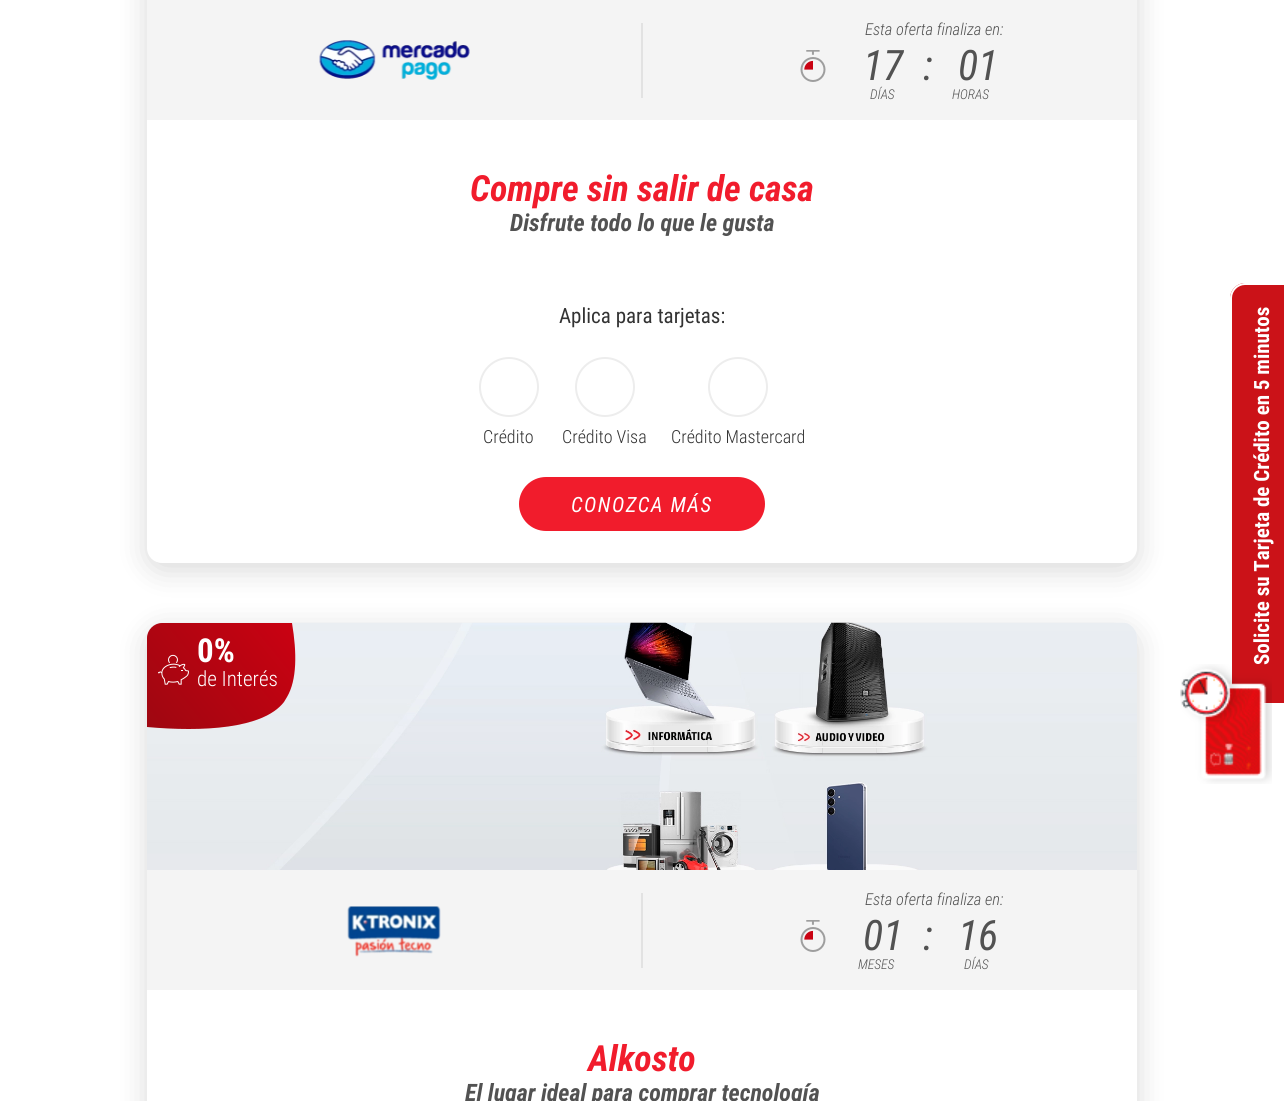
import math
import cairo


def use_color(cr, r, g, b):
  cr.set_source_rgb(r / 255, g / 255, b / 255)

def text(cr, x, y, s, family, size, color, bold=False, italic=False):
  cr.select_font_face(family, cairo.FONT_SLANT_ITALIC if italic else cairo.FONT_SLANT_NORMAL, cairo.FONT_WEIGHT_BOLD if bold else cairo.FONT_WEIGHT_NORMAL)
  cr.set_font_size(size)
  use_color(cr, *color)
  cr.move_to(x, y)
  cr.show_text(s)

def spaced_text(cr, x, y, s, letter, word):
  cr.move_to(x, y)
  for ch in s:
    cr.show_text(ch)
    cr.rel_move_to(letter + word * (ch == ' '), 0)

def box(cr, x, y, w, h, *color):
  use_color(cr, *color)
  cr.rectangle(x, y, w, h)
  cr.fill()

def round_rect(cr, x, y, w, h, r):
  cr.new_sub_path()
  for i, (u, v) in enumerate([(x + w - r, y + h - r), (x + r, y + h - r), (x + r, y + r), (x + w - r, y + r)]):
    cr.arc(u, v, r, i * math.pi / 2, (i + 1) * math.pi / 2)
  cr.close_path()

def shadow(cr, x, y, w, h, r, blur, alpha):
  cr.push_group_with_content(cairo.CONTENT_ALPHA)
  cr.set_operator(cairo.OPERATOR_SOURCE)
  for i in range(15, -16, -2):
    e = blur * i / 6
    if min(w, h) + 2 * e > 0:
      cr.set_source_rgba(0, 0, 0, alpha * math.erfc((i - 1) / 8.5) / 2)
      round_rect(cr, x - e, y - e, w + 2 * e, h + 2 * e, max(0, min(r + e + blur * .6, min(w, h) / 2 + e)))
      cr.fill()
  cr.mask(cr.pop_group())

def picture(cr, path, x, y, w, h):
  cr.save()
  cr.set_source_surface(cairo.ImageSurface.create_from_png(path), x, y)
  cr.rectangle(x, y, w, h)
  cr.fill()
  cr.restore()

def draw(cr):
  use_color(cr, 255, 255, 255)
  cr.paint()
  use_color(cr, 0, 0, 0)
  shadow(cr, 147, -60, 990, 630, 15, 15, 0.15)
  use_color(cr, 255, 255, 255)
  round_rect(cr, 147, -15, 990, 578, 15)
  cr.fill()
  box(cr, 147, 0, 990, 120, 244, 244, 244)
  box(cr, 641, 23, 2, 75, 226, 226, 226)
  picture(cr, "img_01.png", 319, 40, 151, 40)
  picture(cr, "img_02.png", 800, 50, 26, 32)
  cr.arc(509, 387, 29, 0, 2 * math.pi)
  use_color(cr, 237, 237, 237)
  cr.stroke()
  cr.arc(605, 387, 29, 0, 2 * math.pi)
  cr.stroke()
  cr.arc(738, 387, 29, 0, 2 * math.pi)
  cr.stroke()
  use_color(cr, 241, 28, 44)
  round_rect(cr, 519, 477, 246, 54, 27)
  cr.fill()
  use_color(cr, 0, 0, 0)
  shadow(cr, 147, 630, 990, 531, 15, 15, 0.15)
  use_color(cr, 255, 255, 255)
  round_rect(cr, 147, 623, 990, 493, 15)
  cr.fill()
  picture(cr, "img_03.png", 147, 622, 990, 248)
  gradient = cairo.LinearGradient(295, 547, 65, 733)
  gradient.add_color_stop_rgba(0, 0.839, 0, 0.071, 1)
  gradient.add_color_stop_rgba(1, 0.557, 0.035, 0.063, 1)
  cr.set_source(gradient)
  cr.new_path()
  cr.move_to(162, 623)
  cr.curve_to(154, 623, 147, 630, 147, 638)
  cr.line_to(147, 727)
  cr.curve_to(202, 732, 263, 729, 284, 702)
  cr.line_to(287, 697)
  cr.curve_to(297, 680, 297, 653, 292, 623)
  cr.close_path()
  cr.fill()
  picture(cr, "img_04.png", 158, 654, 31, 31)
  box(cr, 147, 870, 990, 120, 244, 244, 244)
  box(cr, 641, 893, 2, 75, 226, 226, 226)
  picture(cr, "img_05.png", 347, 906, 94, 51)
  picture(cr, "img_02.png", 800, 920, 26, 32)
  use_color(cr, 203, 18, 24)
  cr.new_path()
  cr.move_to(1230, 689)
  cr.line_to(1230, 298)
  cr.curve_to(1230, 290, 1237, 283, 1245, 283)
  cr.line_to(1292, 283)
  cr.line_to(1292, 704)
  cr.line_to(1245, 704)
  cr.curve_to(1237, 704, 1230, 698, 1230, 689)
  cr.close_path()
  cr.fill()
  use_color(cr, 255, 255, 255)
  cr.set_fill_rule(cairo.FILL_RULE_EVEN_ODD)
  cr.new_path()
  cr.move_to(1230, 689)
  cr.line_to(1230, 298)
  cr.curve_to(1230, 290, 1237, 283, 1245, 283)
  cr.line_to(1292, 283)
  cr.line_to(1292, 704)
  cr.line_to(1245, 704)
  cr.curve_to(1237, 704, 1230, 698, 1230, 689)
  cr.close_path()
  cr.move_to(1232, 689)
  cr.line_to(1232, 298)
  cr.curve_to(1232, 291, 1238, 285, 1245, 285)
  cr.line_to(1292, 285)
  cr.line_to(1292, 703)
  cr.line_to(1245, 703)
  cr.curve_to(1238, 703, 1232, 697, 1232, 689)
  cr.close_path()
  cr.fill()
  text(cr, 865, 35, "Esta oferta finaliza en:", "Roboto Condensed Light", 16.5, (82, 82, 82), italic=True)
  text(cr, 863, 80, "17", "Roboto Condensed", 42, (82, 82, 82), italic=True)
  text(cr, 870, 99, "DÍAS", "Roboto Condensed Light", 13.5, (82, 82, 82), italic=True)
  text(cr, 923, 80, ":", "Roboto Condensed", 42, (82, 82, 82), italic=True)
  text(cr, 958, 80, "01", "Roboto Condensed", 42, (82, 82, 82), italic=True)
  text(cr, 952, 99, "HORAS", "Roboto Condensed Light", 13.5, (82, 82, 82), italic=True)
  text(cr, 470, 201, "Compre sin salir de casa", "Roboto Condensed", 36, (241, 28, 44), bold=True, italic=True)
  text(cr, 510, 231, "Disfrute todo lo que le gusta", "Roboto Condensed", 24, (82, 82, 82), bold=True, italic=True)
  text(cr, 559, 323, "Aplica para tarjetas:", "Roboto Condensed", 21, (51, 51, 51))
  text(cr, 483, 443, "Crédito", "Roboto Condensed Light", 18, (51, 51, 51))
  text(cr, 562, 443, "Crédito Visa", "Roboto Condensed Light", 18, (51, 51, 51))
  text(cr, 671, 443, "Crédito Mastercard", "Roboto Condensed Light", 18, (51, 51, 51))
  cr.select_font_face("Roboto Condensed", cairo.FONT_SLANT_ITALIC)
  cr.set_font_size(21)
  use_color(cr, 255, 255, 255)
  spaced_text(cr, 571, 512, "CONOZCA MÁS", 1.5, 0)
  text(cr, 197, 662, "0%", "Roboto Condensed", 33, (255, 255, 255), bold=True)
  text(cr, 197, 686, "de Interés", "Roboto Condensed Light", 21, (255, 255, 255))
  text(cr, 865, 905, "Esta oferta finaliza en:", "Roboto Condensed Light", 16.5, (82, 82, 82), italic=True)
  text(cr, 863, 950, "01", "Roboto Condensed", 42, (82, 82, 82), italic=True)
  text(cr, 858, 969, "MESES", "Roboto Condensed Light", 13.5, (82, 82, 82), italic=True)
  text(cr, 923, 950, ":", "Roboto Condensed", 42, (82, 82, 82), italic=True)
  text(cr, 958, 950, "16", "Roboto Condensed", 42, (82, 82, 82), italic=True)
  text(cr, 964, 969, "DÍAS", "Roboto Condensed Light", 13.5, (82, 82, 82), italic=True)
  text(cr, 588, 1071, "Alkosto", "Roboto Condensed", 36, (241, 28, 44), bold=True, italic=True)
  text(cr, 465, 1101, "El lugar ideal para comprar tecnología", "Roboto Condensed", 24, (82, 82, 82), bold=True, italic=True)
  cr.save()
  cr.translate(1269, 665)
  cr.rotate(-90 * math.pi / 180)
  text(cr, 0, 0, "Solicite su Tarjeta de Crédito en 5 minutos", "Roboto Condensed", 21, (255, 255, 255), bold=True)
  cr.restore()
  picture(cr, "img_06.png", 1180, 664, 92, 120)


surface = cairo.ImageSurface(cairo.FORMAT_RGB24, 1284, 1101)
cr = cairo.Context(surface)
options = cairo.FontOptions()
options.set_hint_metrics(cairo.HINT_METRICS_OFF)
options.set_hint_style(cairo.HINT_STYLE_NONE)
cr.set_font_options(options)
cr.set_miter_limit(4)
draw(cr)
surface.write_to_png("out.png")
